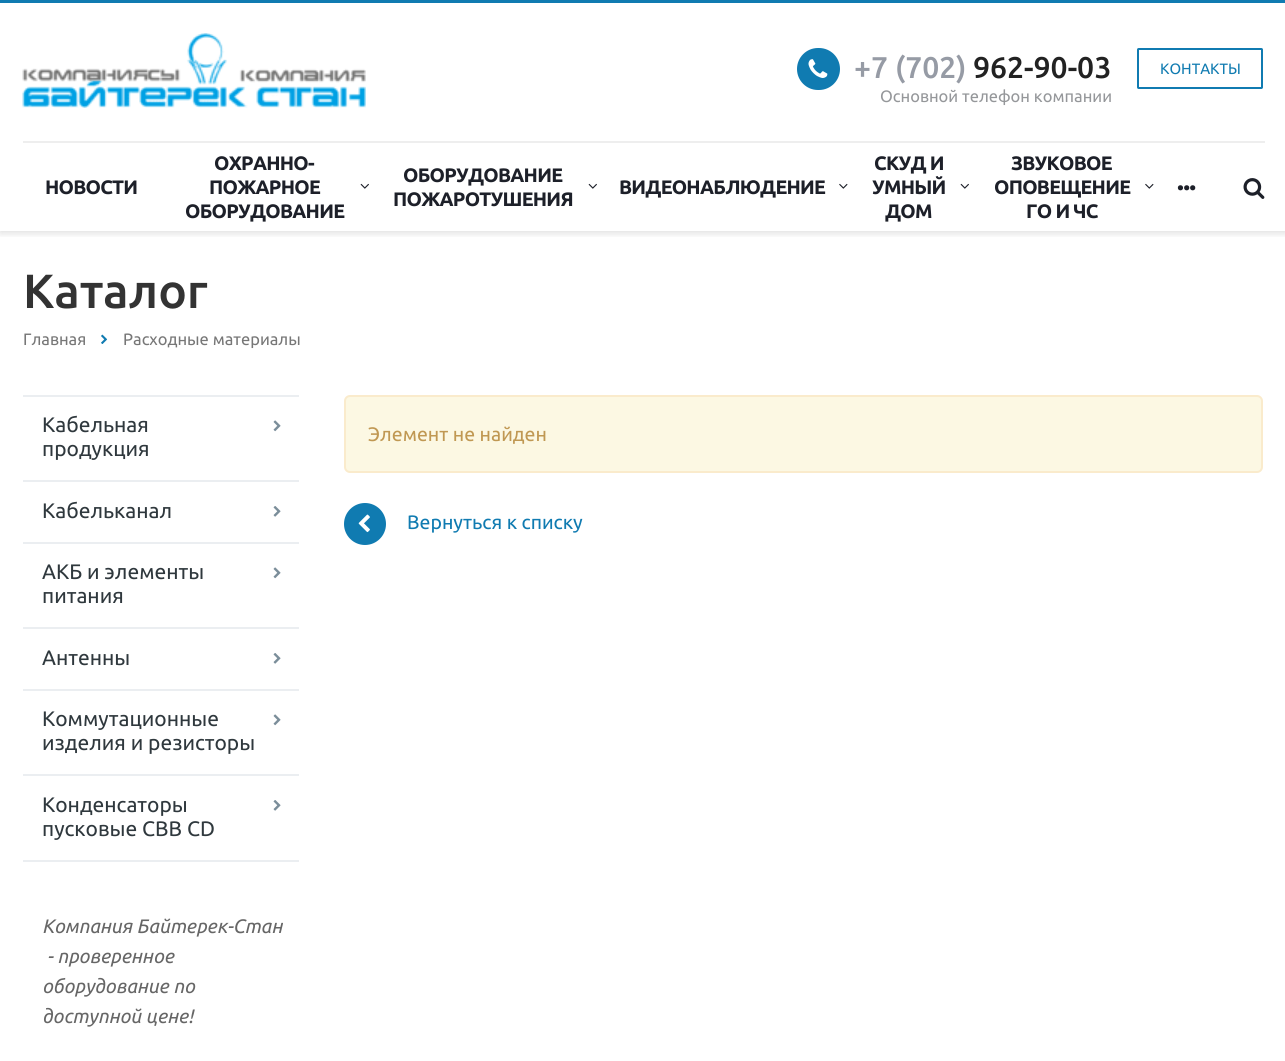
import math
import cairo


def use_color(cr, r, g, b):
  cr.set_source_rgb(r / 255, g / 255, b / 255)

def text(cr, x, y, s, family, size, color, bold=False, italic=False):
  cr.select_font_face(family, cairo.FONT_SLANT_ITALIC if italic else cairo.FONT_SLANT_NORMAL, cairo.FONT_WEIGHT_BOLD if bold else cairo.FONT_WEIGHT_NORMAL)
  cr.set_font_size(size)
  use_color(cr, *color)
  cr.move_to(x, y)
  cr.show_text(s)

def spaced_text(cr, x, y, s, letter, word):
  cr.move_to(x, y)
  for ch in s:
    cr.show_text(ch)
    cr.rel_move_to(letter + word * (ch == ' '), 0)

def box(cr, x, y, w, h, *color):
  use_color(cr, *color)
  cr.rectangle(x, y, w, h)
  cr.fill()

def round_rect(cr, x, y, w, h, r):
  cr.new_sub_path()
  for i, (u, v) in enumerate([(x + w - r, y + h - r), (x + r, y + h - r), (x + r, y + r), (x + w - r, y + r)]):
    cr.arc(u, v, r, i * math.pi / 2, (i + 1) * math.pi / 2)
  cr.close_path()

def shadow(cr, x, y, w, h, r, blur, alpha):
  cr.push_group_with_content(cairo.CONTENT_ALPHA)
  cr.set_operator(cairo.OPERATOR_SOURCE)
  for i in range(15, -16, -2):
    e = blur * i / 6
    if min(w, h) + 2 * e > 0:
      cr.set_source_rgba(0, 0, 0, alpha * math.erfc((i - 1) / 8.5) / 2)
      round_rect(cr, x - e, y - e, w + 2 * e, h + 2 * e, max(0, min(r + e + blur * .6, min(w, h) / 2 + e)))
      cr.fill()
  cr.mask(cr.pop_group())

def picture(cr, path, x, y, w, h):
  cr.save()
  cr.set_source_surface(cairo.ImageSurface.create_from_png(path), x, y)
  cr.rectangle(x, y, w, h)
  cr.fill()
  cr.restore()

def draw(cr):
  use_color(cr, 255, 255, 255)
  cr.paint()
  cr.save()
  cr.rectangle(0, 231, 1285, 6)
  cr.clip()
  use_color(cr, 0, 0, 0)
  shadow(cr, 0, 2, 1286, 231, 0, 4, 0.14)
  cr.restore()
  box(cr, 0, 0, 1285, 3, 16, 123, 177)
  picture(cr, "img_01.png", 22, 33, 344, 75)
  round_rect(cr, 797, 48, 43, 42, 21)
  cr.fill()
  picture(cr, "img_02.png", 808, 59, 20, 19)
  round_rect(cr, 1138, 49, 124, 39, 0.5)
  cr.stroke()
  box(cr, 23, 141, 1242, 2, 238, 238, 238)
  picture(cr, "img_03.png", 360, 183, 9, 6)
  picture(cr, "img_03.png", 588, 183, 9, 6)
  picture(cr, "img_04.png", 839, 183, 9, 6)
  picture(cr, "img_03.png", 960, 183, 9, 6)
  picture(cr, "img_04.png", 1145, 183, 9, 6)
  picture(cr, "img_05.png", 1243, 178, 22, 21)
  picture(cr, "img_06.png", 101, 334, 7, 10)
  box(cr, 23, 860, 276, 2, 235, 238, 241)
  box(cr, 23, 395, 276, 2, 235, 238, 241)
  picture(cr, "img_07.png", 273, 420, 8, 12)
  box(cr, 23, 480, 276, 2, 235, 238, 241)
  picture(cr, "img_08.png", 273, 506, 8, 11)
  box(cr, 23, 542, 276, 2, 235, 238, 241)
  picture(cr, "img_07.png", 273, 567, 8, 12)
  box(cr, 23, 627, 276, 2, 235, 238, 241)
  picture(cr, "img_08.png", 273, 653, 8, 11)
  box(cr, 23, 689, 276, 2, 235, 238, 241)
  picture(cr, "img_07.png", 273, 714, 8, 12)
  box(cr, 23, 774, 276, 2, 235, 238, 241)
  picture(cr, "img_08.png", 273, 800, 8, 11)
  use_color(cr, 252, 248, 227)
  round_rect(cr, 345, 396, 917, 76, 5)
  cr.fill_preserve()
  use_color(cr, 250, 235, 204)
  cr.stroke()
  use_color(cr, 16, 123, 177)
  cr.arc(365, 524, 21, 0, 2 * math.pi)
  cr.fill()
  picture(cr, "img_09.png", 358, 514, 12, 19)
  text(cr, 854, 78, "+7 (702)", "Ubuntu Medium", 30, (150, 155, 165))
  text(cr, 973, 78, "962-90-03", "Ubuntu Medium", 30, (34, 34, 34))
  text(cr, 880, 102, "Основной телефон компании", "Ubuntu", 16.5, (149, 151, 154))
  text(cr, 1160, 74, "КОНТАКТЫ", "Ubuntu", 15, (16, 123, 177))
  cr.select_font_face("Ubuntu", cairo.FONT_SLANT_NORMAL, cairo.FONT_WEIGHT_BOLD)
  cr.set_font_size(19.5)
  use_color(cr, 29, 32, 41)
  spaced_text(cr, 45, 194, "НОВОСТИ", -0.75, 0)
  spaced_text(cr, 214, 170, "ОХРАННО-", -0.75, 0)
  spaced_text(cr, 209, 194, "ПОЖАРНОЕ", -0.75, 0)
  spaced_text(cr, 185, 218, "ОБОРУДОВАНИЕ", -0.75, 0)
  spaced_text(cr, 403, 182, "ОБОРУДОВАНИЕ", -0.75, 0)
  spaced_text(cr, 393, 206, "ПОЖАРОТУШЕНИЯ", -0.75, 0)
  spaced_text(cr, 619, 194, "ВИДЕОНАБЛЮДЕНИЕ", -0.75, 0)
  spaced_text(cr, 874, 170, "СКУД И", -0.75, 0)
  spaced_text(cr, 872, 194, "УМНЫЙ", -0.75, 0)
  spaced_text(cr, 885, 218, "ДОМ", -0.75, 0)
  spaced_text(cr, 1011, 170, "ЗВУКОВОЕ", -0.75, 0)
  spaced_text(cr, 994, 194, "ОПОВЕЩЕНИЕ", -0.75, 0)
  spaced_text(cr, 1026, 218, "ГО И ЧС", -0.75, 0)
  cr.set_font_size(28)
  spaced_text(cr, 1177, 190, "...", -0.75, 0)
  text(cr, 23, 308, "Каталог", "Ubuntu Medium", 48, (51, 51, 51))
  text(cr, 23, 345, "Главная", "Ubuntu", 16.5, (119, 119, 119))
  text(cr, 123, 345, "Расходные материалы", "Ubuntu", 16.5, (119, 119, 119))
  text(cr, 42, 432, "Кабельная", "Ubuntu", 21, (47, 56, 61))
  text(cr, 42, 456, "продукция", "Ubuntu", 21, (47, 56, 61))
  text(cr, 42, 518, "Кабельканал", "Ubuntu", 21, (47, 56, 61))
  text(cr, 42, 579, "АКБ и элементы", "Ubuntu", 21, (47, 56, 61))
  text(cr, 42, 603, "питания", "Ubuntu", 21, (47, 56, 61))
  text(cr, 42, 665, "Антенны", "Ubuntu", 21, (47, 56, 61))
  text(cr, 42, 726, "Коммутационные", "Ubuntu", 21, (47, 56, 61))
  text(cr, 42, 750, "изделия и резисторы", "Ubuntu", 21, (47, 56, 61))
  text(cr, 42, 812, "Конденсаторы", "Ubuntu", 21, (47, 56, 61))
  text(cr, 42, 836, "пусковые CBB CD", "Ubuntu", 21, (47, 56, 61))
  text(cr, 42, 933, "Компания Байтерек-Стан", "Ubuntu", 19.5, (102, 102, 102), italic=True)
  text(cr, 47, 963, "- проверенное", "Ubuntu", 19.5, (102, 102, 102), italic=True)
  text(cr, 42, 993, "оборудование по", "Ubuntu", 19.5, (102, 102, 102), italic=True)
  text(cr, 42, 1023, "доступной цене!", "Ubuntu", 19.5, (102, 102, 102), italic=True)
  text(cr, 368, 441, "Элемент не найден", "Ubuntu", 19.5, (192, 152, 83))
  text(cr, 407, 529, "Вернуться к списку", "Ubuntu", 19.5, (16, 123, 177))


surface = cairo.ImageSurface(cairo.FORMAT_RGB24, 1285, 1061)
cr = cairo.Context(surface)
options = cairo.FontOptions()
options.set_hint_metrics(cairo.HINT_METRICS_OFF)
options.set_hint_style(cairo.HINT_STYLE_NONE)
cr.set_font_options(options)
cr.set_miter_limit(4)
draw(cr)
surface.write_to_png("out.png")
